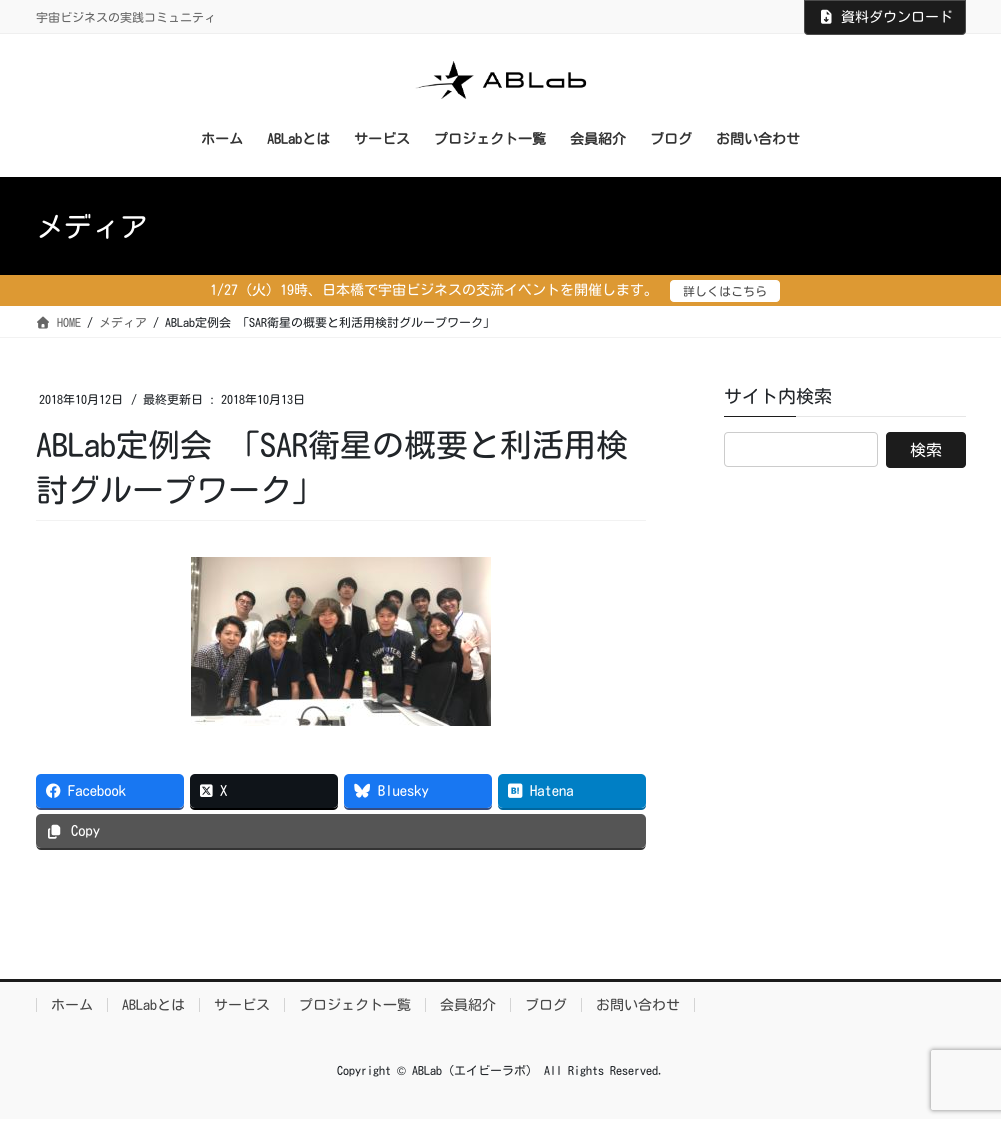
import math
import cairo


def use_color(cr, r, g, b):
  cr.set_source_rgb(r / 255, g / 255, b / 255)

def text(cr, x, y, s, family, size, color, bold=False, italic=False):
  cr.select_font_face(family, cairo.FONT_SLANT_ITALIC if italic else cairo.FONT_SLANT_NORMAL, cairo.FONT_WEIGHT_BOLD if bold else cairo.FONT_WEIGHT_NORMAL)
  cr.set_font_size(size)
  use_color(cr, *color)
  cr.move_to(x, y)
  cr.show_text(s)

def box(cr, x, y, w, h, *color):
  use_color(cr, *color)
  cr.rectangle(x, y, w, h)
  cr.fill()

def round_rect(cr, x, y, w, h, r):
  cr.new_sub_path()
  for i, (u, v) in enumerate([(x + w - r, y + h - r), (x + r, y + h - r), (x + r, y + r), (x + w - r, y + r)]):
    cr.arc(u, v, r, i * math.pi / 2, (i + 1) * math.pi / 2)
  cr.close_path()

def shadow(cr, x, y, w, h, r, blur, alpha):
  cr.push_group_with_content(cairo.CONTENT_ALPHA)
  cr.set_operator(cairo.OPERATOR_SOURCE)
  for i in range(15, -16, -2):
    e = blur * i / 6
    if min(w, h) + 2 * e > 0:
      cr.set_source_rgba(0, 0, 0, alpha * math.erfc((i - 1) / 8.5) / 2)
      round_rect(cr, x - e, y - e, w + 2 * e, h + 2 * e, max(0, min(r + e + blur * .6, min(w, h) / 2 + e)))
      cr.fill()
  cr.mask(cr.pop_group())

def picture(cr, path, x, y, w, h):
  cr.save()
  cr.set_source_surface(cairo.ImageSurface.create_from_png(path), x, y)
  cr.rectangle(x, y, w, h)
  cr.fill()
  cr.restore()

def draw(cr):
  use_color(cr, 255, 255, 255)
  cr.paint()
  box(cr, 0, 0, 1001, 33, 249, 249, 249)
  box(cr, 0, 33, 1001, 1, 239, 239, 239)
  use_color(cr, 28, 28, 28)
  cr.new_path()
  cr.move_to(804.5, 0.5)
  cr.line_to(965.5, 0.5)
  cr.line_to(965.5, 31)
  cr.curve_to(965.5, 33, 964, 34.5, 962, 34.5)
  cr.line_to(808, 34.5)
  cr.curve_to(806, 34.5, 804.5, 33, 804.5, 31)
  cr.close_path()
  cr.fill_preserve()
  use_color(cr, 76, 76, 76)
  cr.set_line_width(1)
  cr.stroke()
  picture(cr, "img_01.png", 821, 9, 11, 15)
  picture(cr, "img_02.png", 415, 61, 172, 38)
  box(cr, 0, 177, 1001, 98, 0, 0, 0)
  box(cr, 0, 275, 1001, 31, 221, 153, 51)
  use_color(cr, 255, 255, 255)
  round_rect(cr, 670.5, 280.5, 109, 21, 3.5)
  cr.fill_preserve()
  cr.stroke()
  box(cr, 0, 337, 1001, 1, 242, 242, 242)
  picture(cr, "img_03.png", 37, 316, 12, 13)
  box(cr, 36, 520, 610, 1, 242, 242, 242)
  picture(cr, "img_04.png", 191, 557, 300, 169)
  use_color(cr, 52, 78, 132)
  cr.new_path()
  cr.move_to(36, 803)
  cr.line_to(36, 805)
  cr.curve_to(36, 808, 38, 810, 41, 810)
  cr.line_to(179, 810)
  cr.curve_to(182, 810, 184, 808, 184, 805)
  cr.line_to(184, 803)
  cr.curve_to(184, 806, 182, 808, 179, 808)
  cr.line_to(41, 808)
  cr.curve_to(38, 808, 36, 806, 36, 803)
  cr.close_path()
  cr.fill()
  use_color(cr, 24, 119, 242)
  round_rect(cr, 36, 774, 148, 34, 5)
  cr.fill()
  picture(cr, "img_05.png", 46, 783, 15, 15)
  use_color(cr, 0, 0, 0)
  cr.new_path()
  cr.move_to(190, 803)
  cr.line_to(190, 805)
  cr.curve_to(190, 808, 192, 810, 195, 810)
  cr.line_to(333, 810)
  cr.curve_to(336, 810, 338, 808, 338, 805)
  cr.line_to(338, 803)
  cr.curve_to(338, 806, 336, 808, 333, 808)
  cr.line_to(195, 808)
  cr.curve_to(192, 808, 190, 806, 190, 803)
  cr.close_path()
  cr.fill()
  use_color(cr, 15, 20, 25)
  round_rect(cr, 190, 774, 148, 34, 5)
  cr.fill()
  picture(cr, "img_06.png", 200, 784, 13, 13)
  use_color(cr, 52, 78, 132)
  cr.new_path()
  cr.move_to(344, 803)
  cr.line_to(344, 805)
  cr.curve_to(344, 808, 346, 810, 349, 810)
  cr.line_to(487, 810)
  cr.curve_to(490, 810, 492, 808, 492, 805)
  cr.line_to(492, 803)
  cr.curve_to(492, 806, 490, 808, 487, 808)
  cr.line_to(349, 808)
  cr.curve_to(346, 808, 344, 806, 344, 803)
  cr.close_path()
  cr.fill()
  use_color(cr, 24, 119, 242)
  round_rect(cr, 344, 774, 148, 34, 5)
  cr.fill()
  picture(cr, "img_07.png", 354, 783, 16, 15)
  use_color(cr, 0, 103, 159)
  cr.new_path()
  cr.move_to(498, 803)
  cr.line_to(498, 805)
  cr.curve_to(498, 808, 500, 810, 503, 810)
  cr.line_to(641, 810)
  cr.curve_to(644, 810, 646, 808, 646, 805)
  cr.line_to(646, 803)
  cr.curve_to(646, 806, 644, 808, 641, 808)
  cr.line_to(503, 808)
  cr.curve_to(500, 808, 498, 806, 498, 803)
  cr.close_path()
  cr.fill()
  use_color(cr, 0, 127, 197)
  round_rect(cr, 498, 774, 148, 34, 5)
  cr.fill()
  picture(cr, "img_08.png", 508, 783, 15, 15)
  use_color(cr, 51, 51, 51)
  cr.new_path()
  cr.move_to(36, 843)
  cr.curve_to(36, 846, 37, 850, 41, 850)
  cr.line_to(641, 850)
  cr.curve_to(645, 850, 646, 846, 646, 843)
  cr.curve_to(646, 846, 644, 848, 641, 848)
  cr.line_to(41, 848)
  cr.curve_to(38, 848, 36, 846, 36, 843)
  cr.close_path()
  cr.fill()
  use_color(cr, 85, 85, 85)
  round_rect(cr, 36, 814, 610, 34, 5)
  cr.fill()
  picture(cr, "img_09.png", 48, 824, 13, 15)
  box(cr, 796, 416, 170, 1, 230, 230, 230)
  box(cr, 724, 416, 72, 1, 28, 28, 28)
  round_rect(cr, 724.5, 432.5, 153, 34, 3.5)
  use_color(cr, 204, 204, 204)
  cr.stroke()
  use_color(cr, 28, 28, 28)
  round_rect(cr, 886, 432, 80, 36, 4)
  cr.fill()
  box(cr, 0, 982, 1001, 137, 249, 249, 249)
  box(cr, 0, 979, 1001, 3, 28, 28, 28)
  box(cr, 36, 998, 1, 14, 212, 212, 212)
  box(cr, 107, 998, 1, 14, 212, 212, 212)
  box(cr, 199, 998, 1, 14, 212, 212, 212)
  box(cr, 284, 998, 1, 14, 212, 212, 212)
  box(cr, 425, 998, 1, 14, 212, 212, 212)
  box(cr, 510, 998, 1, 14, 212, 212, 212)
  box(cr, 694, 998, 1, 14, 212, 212, 212)
  box(cr, 581, 998, 1, 14, 212, 212, 212)
  cr.save()
  cr.set_fill_rule(cairo.FILL_RULE_EVEN_ODD)
  cr.new_path()
  cr.move_to(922, 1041)
  cr.line_to(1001, 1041)
  cr.line_to(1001, 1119)
  cr.line_to(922, 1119)
  cr.close_path()
  cr.move_to(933, 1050)
  cr.line_to(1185, 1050)
  cr.curve_to(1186, 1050, 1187, 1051, 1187, 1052)
  cr.line_to(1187, 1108)
  cr.curve_to(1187, 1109, 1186, 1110, 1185, 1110)
  cr.line_to(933, 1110)
  cr.curve_to(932, 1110, 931, 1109, 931, 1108)
  cr.line_to(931, 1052)
  cr.curve_to(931, 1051, 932, 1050, 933, 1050)
  cr.close_path()
  cr.clip()
  use_color(cr, 128, 128, 128)
  shadow(cr, 931, 1050, 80, 60, 2, 2.5, 1)
  cr.restore()
  text(cr, 36, 22, "宇宙ビジネスの実践コミュニティ", "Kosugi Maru", 12, (102, 102, 102))
  text(cr, 841, 22, "資料ダウンロード", "Kosugi Maru", 14, (255, 255, 255))
  text(cr, 201, 144, "ホーム", "Kosugi Maru", 14, (51, 51, 51), bold=True)
  text(cr, 267, 144, "ABLabとは", "Kosugi Maru", 14, (51, 51, 51), bold=True)
  text(cr, 354, 144, "サービス", "Kosugi Maru", 14, (51, 51, 51), bold=True)
  text(cr, 434, 144, "プロジェクト一覧", "Kosugi Maru", 14, (51, 51, 51), bold=True)
  text(cr, 570, 144, "会員紹介", "Kosugi Maru", 14, (51, 51, 51), bold=True)
  text(cr, 650, 144, "ブログ", "Kosugi Maru", 14, (51, 51, 51), bold=True)
  text(cr, 716, 144, "お問い合わせ", "Kosugi Maru", 14, (51, 51, 51), bold=True)
  text(cr, 36, 237, "メディア", "Kosugi Maru", 28, (255, 255, 255))
  text(cr, 210, 295, "1/27（火）19時、日本橋で宇宙ビジネスの交流イベントを開催します。", "Kosugi Maru", 14, (255, 255, 255))
  text(cr, 683, 296, "詳しくはこちら", "Kosugi Maru", 12, (76, 76, 76))
  text(cr, 57, 327, "HOME", "Kosugi Maru", 12, (102, 102, 102))
  text(cr, 87, 327, "/", "Kosugi Maru", 12, (33, 37, 41))
  text(cr, 99, 327, "メディア", "Kosugi Maru", 12, (102, 102, 102))
  text(cr, 153, 327, "/ ABLab定例会 「SAR衛星の概要と利活用検討グループワーク」", "Kosugi Maru", 12, (33, 37, 41))
  text(cr, 39, 404, "2018年10月12日", "Kosugi Maru", 12, (33, 37, 41))
  text(cr, 131, 404, "/ 最終更新日 : 2018年10月13日", "Kosugi Maru", 12, (33, 37, 41))
  text(cr, 36, 457, "ABLab定例会 「SAR衛星の概要と利活用検", "Kosugi Maru", 32, (33, 37, 41))
  text(cr, 36, 502, "討グループワーク」", "Kosugi Maru", 32, (33, 37, 41))
  text(cr, 68, 796, "Facebook", "Kosugi Maru", 14.5, (255, 255, 255))
  text(cr, 220, 796, "X", "Kosugi Maru", 14.5, (255, 255, 255))
  text(cr, 378, 796, "Bluesky", "Kosugi Maru", 14.5, (255, 255, 255))
  text(cr, 530, 796, "Hatena", "Kosugi Maru", 14.5, (255, 255, 255))
  text(cr, 71, 836, "Copy", "Kosugi Maru", 14.5, (255, 255, 255))
  text(cr, 724, 403, "サイト内検索", "Kosugi Maru", 18, (33, 37, 41))
  text(cr, 910, 456, "検索", "Kosugi Maru", 16, (255, 255, 255))
  text(cr, 51, 1010, "ホーム", "Kosugi Maru", 14, (70, 70, 70))
  text(cr, 122, 1010, "ABLabとは", "Kosugi Maru", 14, (70, 70, 70))
  text(cr, 214, 1010, "サービス", "Kosugi Maru", 14, (70, 70, 70))
  text(cr, 299, 1010, "プロジェクト一覧", "Kosugi Maru", 14, (70, 70, 70))
  text(cr, 440, 1010, "会員紹介", "Kosugi Maru", 14, (70, 70, 70))
  text(cr, 525, 1010, "ブログ", "Kosugi Maru", 14, (70, 70, 70))
  text(cr, 596, 1010, "お問い合わせ", "Kosugi Maru", 14, (70, 70, 70))
  text(cr, 337, 1075, "Copyright", "Kosugi Maru", 12, (33, 37, 41))
  text(cr, 397, 1075, "©", "Liberation Sans", 12, (33, 37, 41))
  text(cr, 412, 1075, "ABLab（エイビーラボ） All Rights Reserved.", "Kosugi Maru", 12, (33, 37, 41))


surface = cairo.ImageSurface(cairo.FORMAT_RGB24, 1001, 1124)
cr = cairo.Context(surface)
options = cairo.FontOptions()
options.set_hint_metrics(cairo.HINT_METRICS_OFF)
options.set_hint_style(cairo.HINT_STYLE_NONE)
cr.set_font_options(options)
cr.set_miter_limit(4)
draw(cr)
surface.write_to_png("out.png")
